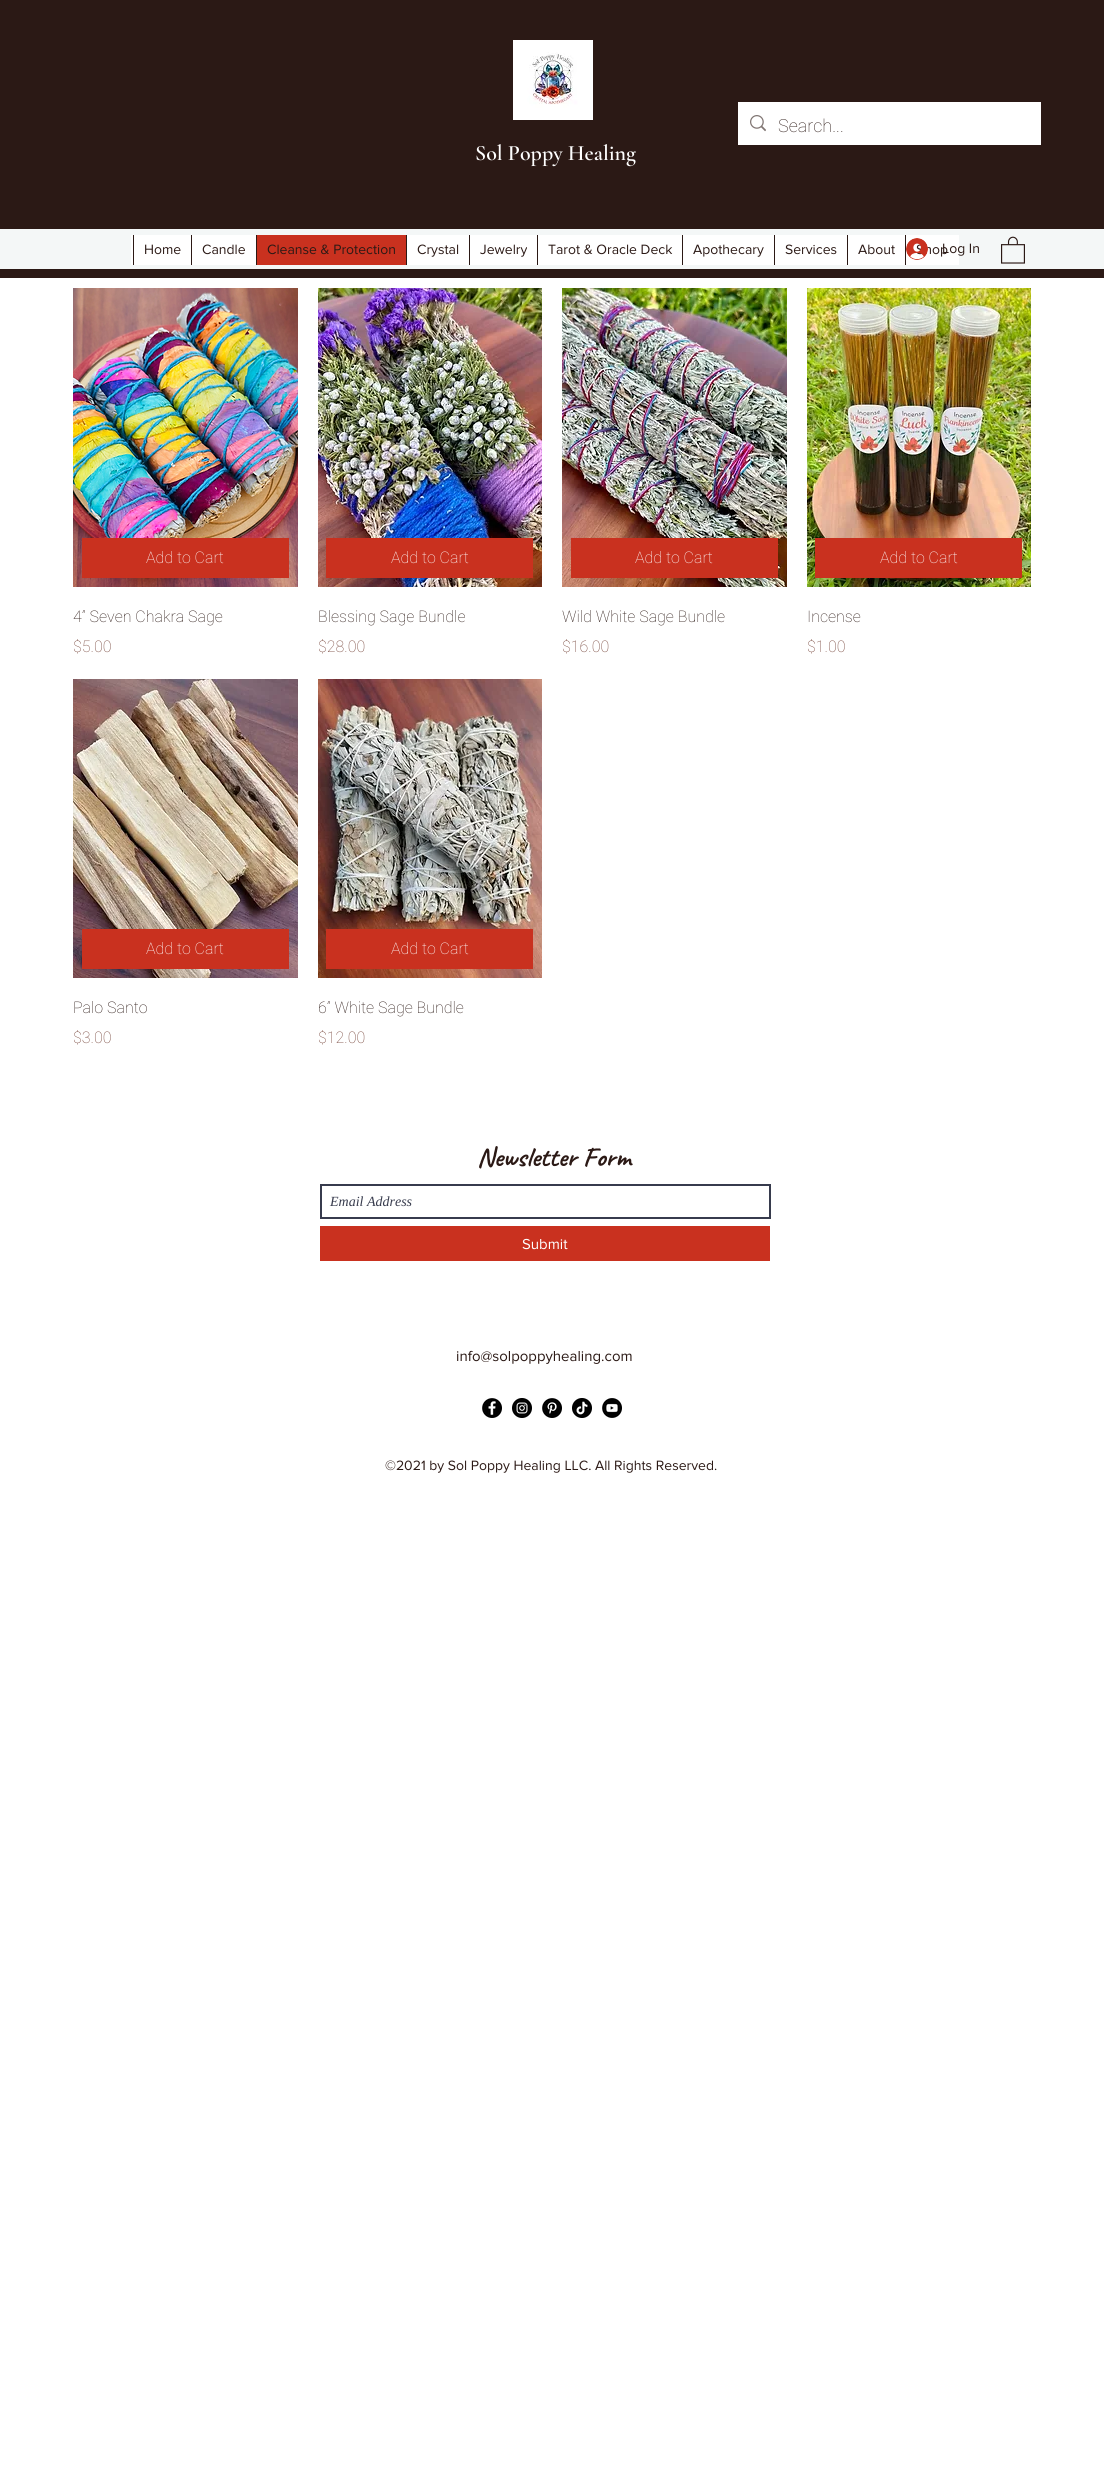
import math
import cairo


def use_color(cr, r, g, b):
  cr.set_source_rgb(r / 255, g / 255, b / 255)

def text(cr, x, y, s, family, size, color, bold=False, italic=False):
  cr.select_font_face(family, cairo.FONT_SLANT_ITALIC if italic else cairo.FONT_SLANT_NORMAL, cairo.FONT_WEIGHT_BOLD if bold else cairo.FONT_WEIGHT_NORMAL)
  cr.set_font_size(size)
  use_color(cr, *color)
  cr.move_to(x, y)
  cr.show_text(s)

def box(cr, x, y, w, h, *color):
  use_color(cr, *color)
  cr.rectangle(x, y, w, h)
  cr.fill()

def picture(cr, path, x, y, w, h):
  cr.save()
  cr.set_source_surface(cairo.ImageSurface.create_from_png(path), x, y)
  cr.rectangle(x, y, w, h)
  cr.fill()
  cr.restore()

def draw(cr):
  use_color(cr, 255, 255, 255)
  cr.paint()
  box(cr, 0, 0, 1104, 278, 43, 25, 21)
  box(cr, 738, 102, 303, 43, 255, 255, 255)
  picture(cr, "img_01.png", 750, 115, 16, 17)
  picture(cr, "img_02.png", 513, 40, 80, 80)
  box(cr, 0, 229, 1104, 40, 244, 247, 247)
  box(cr, 131, 235, 828, 30, 255, 255, 255)
  box(cr, 133, 235, 1, 30, 43, 25, 21)
  box(cr, 191, 235, 1, 30, 43, 25, 21)
  box(cr, 257, 235, 149, 30, 201, 49, 31)
  box(cr, 256, 235, 1, 30, 43, 25, 21)
  box(cr, 406, 235, 1, 30, 43, 25, 21)
  box(cr, 469, 235, 1, 30, 43, 25, 21)
  box(cr, 537, 235, 1, 30, 43, 25, 21)
  box(cr, 682, 235, 1, 30, 43, 25, 21)
  box(cr, 774, 235, 1, 30, 43, 25, 21)
  box(cr, 847, 235, 1, 30, 43, 25, 21)
  box(cr, 905, 235, 1, 30, 43, 25, 21)
  picture(cr, "img_04.png", 1001, 236, 24, 28)
  picture(cr, "img_05.png", 73, 288, 225, 299)
  box(cr, 82, 538, 207, 40, 201, 49, 31)
  picture(cr, "img_06.png", 318, 288, 224, 299)
  box(cr, 326, 538, 207, 40, 201, 49, 31)
  picture(cr, "img_07.png", 562, 288, 225, 299)
  box(cr, 571, 538, 207, 40, 201, 49, 31)
  picture(cr, "img_08.png", 807, 288, 224, 299)
  box(cr, 815, 538, 207, 40, 201, 49, 31)
  picture(cr, "img_09.png", 73, 679, 225, 299)
  box(cr, 82, 929, 207, 40, 201, 49, 31)
  picture(cr, "img_10.png", 318, 679, 224, 299)
  box(cr, 326, 929, 207, 40, 201, 49, 31)
  cr.rectangle(321, 1185, 449, 33)
  use_color(cr, 55, 59, 77)
  cr.stroke()
  box(cr, 320, 1226, 450, 35, 201, 49, 31)
  picture(cr, "img_11.png", 482, 1398, 20, 20)
  picture(cr, "img_12.png", 512, 1398, 20, 20)
  picture(cr, "img_13.png", 542, 1398, 20, 20)
  picture(cr, "img_14.png", 572, 1398, 20, 20)
  picture(cr, "img_15.png", 602, 1398, 20, 20)
  text(cr, 778, 132, "Search...", "Roboto Thin", 18, (43, 25, 21))
  text(cr, 475, 160, "Sol Poppy Healing", "Cormorant Garamond SemiBold", 22, (255, 255, 255))
  text(cr, 144, 254, "Home", "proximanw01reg", 14, (43, 25, 21))
  text(cr, 202, 254, "Candle", "proximanw01reg", 14, (43, 25, 21))
  text(cr, 267, 254, "Cleanse & Protection", "proximanw01reg", 14, (43, 25, 21))
  text(cr, 417, 254, "Crystal", "proximanw01reg", 14, (43, 25, 21))
  text(cr, 480, 254, "Jewelry", "proximanw01reg", 14, (43, 25, 21))
  text(cr, 548, 254, "Tarot & Oracle Deck", "proximanw01reg", 14, (43, 25, 21))
  text(cr, 693, 254, "Apothecary", "proximanw01reg", 14, (43, 25, 21))
  text(cr, 785, 254, "Services", "proximanw01reg", 14, (43, 25, 21))
  text(cr, 858, 254, "About", "proximanw01reg", 14, (43, 25, 21))
  text(cr, 916, 254, "Shop", "proximanw01reg", 14, (43, 25, 21))
  picture(cr, "img_03.png", 906, 238, 22, 22)
  text(cr, 942, 253, "Log In", "proximanw01reg", 14, (43, 25, 21))
  text(cr, 146, 563, "Add to Cart", "Roboto Thin", 16, (255, 255, 255))
  text(cr, 73, 622, "4” Seven Chakra Sage", "Roboto Thin", 16, (43, 25, 21))
  text(cr, 73, 652, "$5.00", "Roboto Thin", 16, (118, 69, 58))
  text(cr, 391, 563, "Add to Cart", "Roboto Thin", 16, (255, 255, 255))
  text(cr, 318, 622, "Blessing Sage Bundle", "Roboto Thin", 16, (43, 25, 21))
  text(cr, 318, 652, "$28.00", "Roboto Thin", 16, (118, 69, 58))
  text(cr, 635, 563, "Add to Cart", "Roboto Thin", 16, (255, 255, 255))
  text(cr, 562, 622, "Wild White Sage Bundle", "Roboto Thin", 16, (43, 25, 21))
  text(cr, 562, 652, "$16.00", "Roboto Thin", 16, (118, 69, 58))
  text(cr, 880, 563, "Add to Cart", "Roboto Thin", 16, (255, 255, 255))
  text(cr, 807, 622, "Incense", "Roboto Thin", 16, (43, 25, 21))
  text(cr, 807, 652, "$1.00", "Roboto Thin", 16, (118, 69, 58))
  text(cr, 146, 954, "Add to Cart", "Roboto Thin", 16, (255, 255, 255))
  text(cr, 73, 1013, "Palo Santo", "Roboto Thin", 16, (43, 25, 21))
  text(cr, 73, 1043, "$3.00", "Roboto Thin", 16, (118, 69, 58))
  text(cr, 391, 954, "Add to Cart", "Roboto Thin", 16, (255, 255, 255))
  text(cr, 318, 1013, "6” White Sage Bundle", "Roboto Thin", 16, (43, 25, 21))
  text(cr, 318, 1043, "$12.00", "Roboto Thin", 16, (118, 69, 58))
  text(cr, 477, 1166, "Newsletter Form", "Caveat", 27, (43, 25, 21), bold=True)
  text(cr, 330, 1206, "Email Address", "Liberation Serif", 14, (55, 59, 77), italic=True)
  text(cr, 522, 1249, "Submit", "proximanw01reg", 15, (255, 255, 255))
  text(cr, 456, 1361, "info@solpoppyhealing.com", "proximanw01reg", 15, (43, 25, 21))
  text(cr, 385, 1470, "©2021 by Sol Poppy Healing LLC. All Rights Reserved.", "proximanw01reg", 14, (43, 25, 21))


surface = cairo.ImageSurface(cairo.FORMAT_RGB24, 1104, 2471)
cr = cairo.Context(surface)
options = cairo.FontOptions()
options.set_hint_metrics(cairo.HINT_METRICS_OFF)
options.set_hint_style(cairo.HINT_STYLE_NONE)
cr.set_font_options(options)
cr.set_miter_limit(4)
draw(cr)
surface.write_to_png("out.png")
